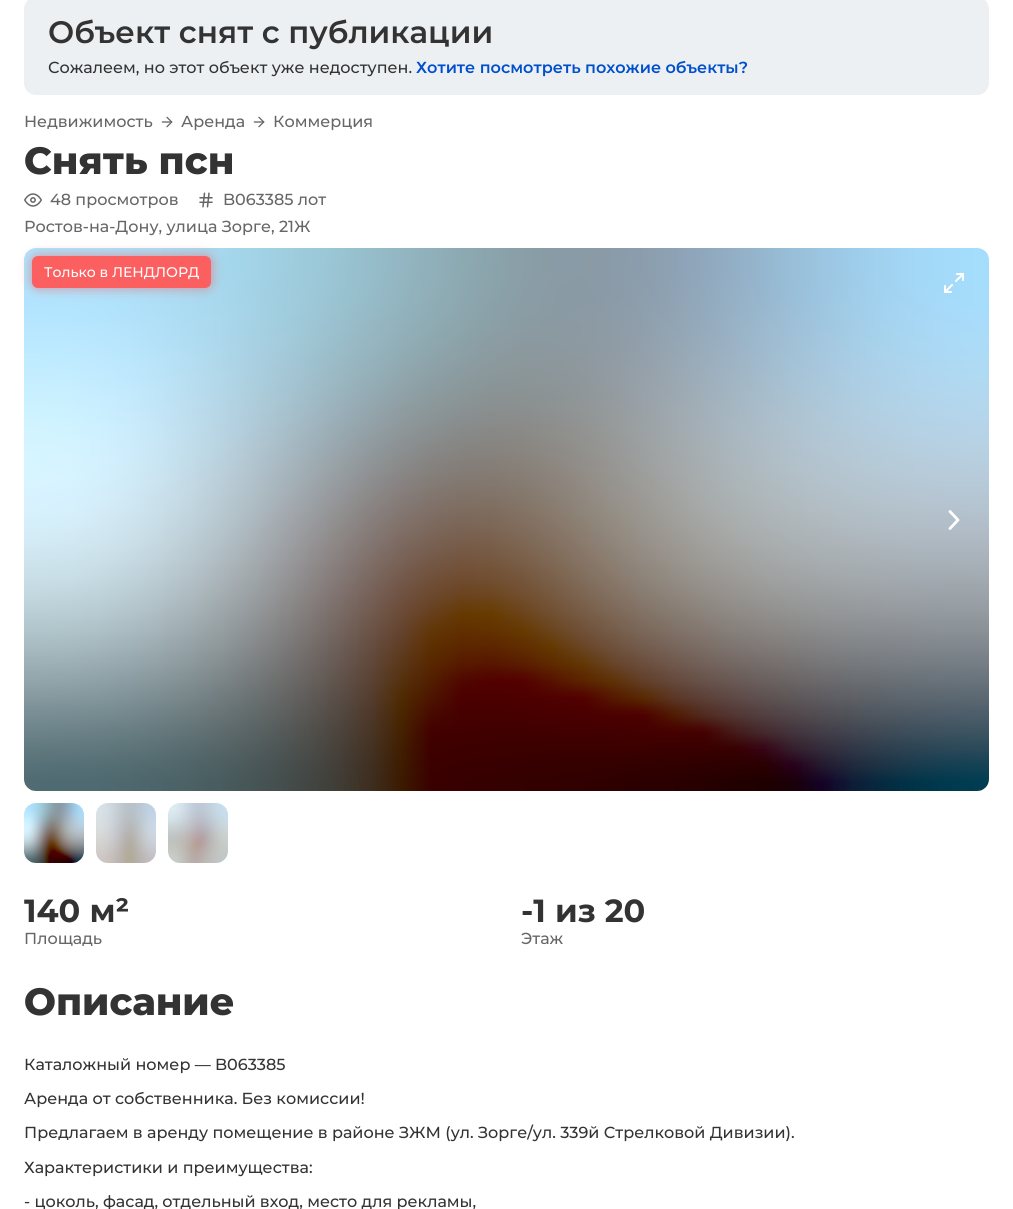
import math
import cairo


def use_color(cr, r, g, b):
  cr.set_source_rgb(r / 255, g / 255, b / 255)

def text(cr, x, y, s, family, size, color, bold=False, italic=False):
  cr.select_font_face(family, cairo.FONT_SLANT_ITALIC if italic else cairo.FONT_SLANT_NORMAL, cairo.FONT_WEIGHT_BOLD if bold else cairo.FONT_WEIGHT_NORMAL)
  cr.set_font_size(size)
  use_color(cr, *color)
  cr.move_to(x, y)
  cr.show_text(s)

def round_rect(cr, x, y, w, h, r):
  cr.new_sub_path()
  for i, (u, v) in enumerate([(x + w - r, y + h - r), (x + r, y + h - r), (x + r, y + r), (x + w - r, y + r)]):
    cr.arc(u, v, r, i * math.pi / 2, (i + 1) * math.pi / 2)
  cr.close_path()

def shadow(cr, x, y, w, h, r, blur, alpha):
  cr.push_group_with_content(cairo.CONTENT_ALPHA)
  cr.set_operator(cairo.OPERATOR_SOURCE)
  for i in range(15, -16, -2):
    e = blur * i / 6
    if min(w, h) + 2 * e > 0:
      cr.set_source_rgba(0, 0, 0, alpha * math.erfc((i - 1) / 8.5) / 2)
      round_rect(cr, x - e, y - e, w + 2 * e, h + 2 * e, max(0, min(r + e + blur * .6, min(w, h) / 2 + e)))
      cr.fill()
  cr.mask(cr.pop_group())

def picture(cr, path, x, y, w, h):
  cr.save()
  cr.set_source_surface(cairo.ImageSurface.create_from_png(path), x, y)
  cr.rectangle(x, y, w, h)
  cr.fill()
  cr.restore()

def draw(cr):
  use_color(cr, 255, 255, 255)
  cr.paint()
  use_color(cr, 237, 240, 243)
  round_rect(cr, 24, -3, 965, 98, 12)
  cr.fill()
  picture(cr, "img_01.png", 161, 116, 12, 12)
  picture(cr, "img_01.png", 253, 116, 12, 12)
  picture(cr, "img_02.png", 24, 193, 18, 14)
  picture(cr, "img_03.png", 199, 192, 14, 16)
  picture(cr, "img_04.png", 24, 248, 965, 543)
  use_color(cr, 232, 109, 109)
  shadow(cr, 32, 256, 179, 32, 6, 6, 0.7)
  use_color(cr, 251, 95, 95)
  round_rect(cr, 32, 256, 179, 32, 6)
  cr.fill()
  picture(cr, "img_05.png", 944, 273, 20, 20)
  cr.new_path()
  cr.move_to(950, 528.5)
  cr.line_to(958, 520)
  cr.line_to(950, 511.5)
  use_color(cr, 255, 255, 255)
  cr.set_line_width(2.8)
  cr.set_line_cap(cairo.LINE_CAP_ROUND)
  cr.set_line_join(cairo.LINE_JOIN_ROUND)
  cr.stroke()
  picture(cr, "img_06.png", 24, 803, 60, 60)
  use_color(cr, 248, 249, 250)
  round_rect(cr, 96, 803, 60, 60, 12)
  cr.fill()
  picture(cr, "img_07.png", 96, 803, 60, 60)
  round_rect(cr, 168, 803, 60, 60, 12)
  cr.fill()
  picture(cr, "img_08.png", 168, 803, 60, 60)
  text(cr, 48, 43, "Объект снят с публикации", "Montserrat SemiBold", 31, (51, 51, 51))
  text(cr, 48, 73, "Сожалеем, но этот объект уже недоступен.", "Montserrat Medium", 16, (51, 51, 51))
  text(cr, 416, 73, "Хотите посмотреть похожие объекты?", "Montserrat SemiBold", 16, (0, 80, 204))
  text(cr, 24, 127, "Недвижимость", "Montserrat Medium", 16, (102, 102, 102))
  text(cr, 181, 127, "Аренда", "Montserrat Medium", 16, (102, 102, 102))
  text(cr, 273, 127, "Коммерция", "Montserrat Medium", 16, (102, 102, 102))
  text(cr, 24, 174, "Снять псн", "Montserrat ExtraBold", 38, (51, 51, 51))
  text(cr, 50, 205, "48 просмотров", "Montserrat Medium", 16, (102, 102, 102))
  text(cr, 223, 205, "B063385 лот", "Montserrat Medium", 16, (102, 102, 102))
  text(cr, 24, 232, "Ростов-на-Дону, улица Зорге, 21Ж", "Montserrat Medium", 16, (102, 102, 102))
  text(cr, 44, 277, "Только в ЛЕНДЛОРД", "Montserrat Medium", 14, (255, 255, 255))
  text(cr, 24, 922, "140 м²", "Montserrat", 32, (51, 51, 51), bold=True)
  text(cr, 24, 944, "Площадь", "Montserrat Medium", 16, (102, 102, 102))
  text(cr, 521, 922, "-1 из 20", "Montserrat", 32, (51, 51, 51), bold=True)
  text(cr, 521, 944, "Этаж", "Montserrat Medium", 16, (102, 102, 102))
  text(cr, 24, 1015, "Описание", "Montserrat ExtraBold", 38, (51, 51, 51))
  text(cr, 24, 1070, "Каталожный номер — B063385", "Montserrat Medium", 16, (51, 51, 51))
  text(cr, 24, 1104, "Аренда от собственника. Без комиссии!", "Montserrat Medium", 16, (51, 51, 51))
  text(cr, 24, 1138, "Предлагаем в аренду помещение в районе ЗЖМ (ул. Зорге/ул. 339й Стрелковой Дивизии).", "Montserrat Medium", 16, (51, 51, 51))
  text(cr, 24, 1173, "Характеристики и преимущества:", "Montserrat Medium", 16, (51, 51, 51))
  text(cr, 24, 1207, "- цоколь, фасад, отдельный вход, место для рекламы,", "Montserrat Medium", 16, (51, 51, 51))


surface = cairo.ImageSurface(cairo.FORMAT_RGB24, 1013, 1209)
cr = cairo.Context(surface)
options = cairo.FontOptions()
options.set_hint_metrics(cairo.HINT_METRICS_OFF)
options.set_hint_style(cairo.HINT_STYLE_NONE)
cr.set_font_options(options)
cr.set_miter_limit(4)
draw(cr)
surface.write_to_png("out.png")
